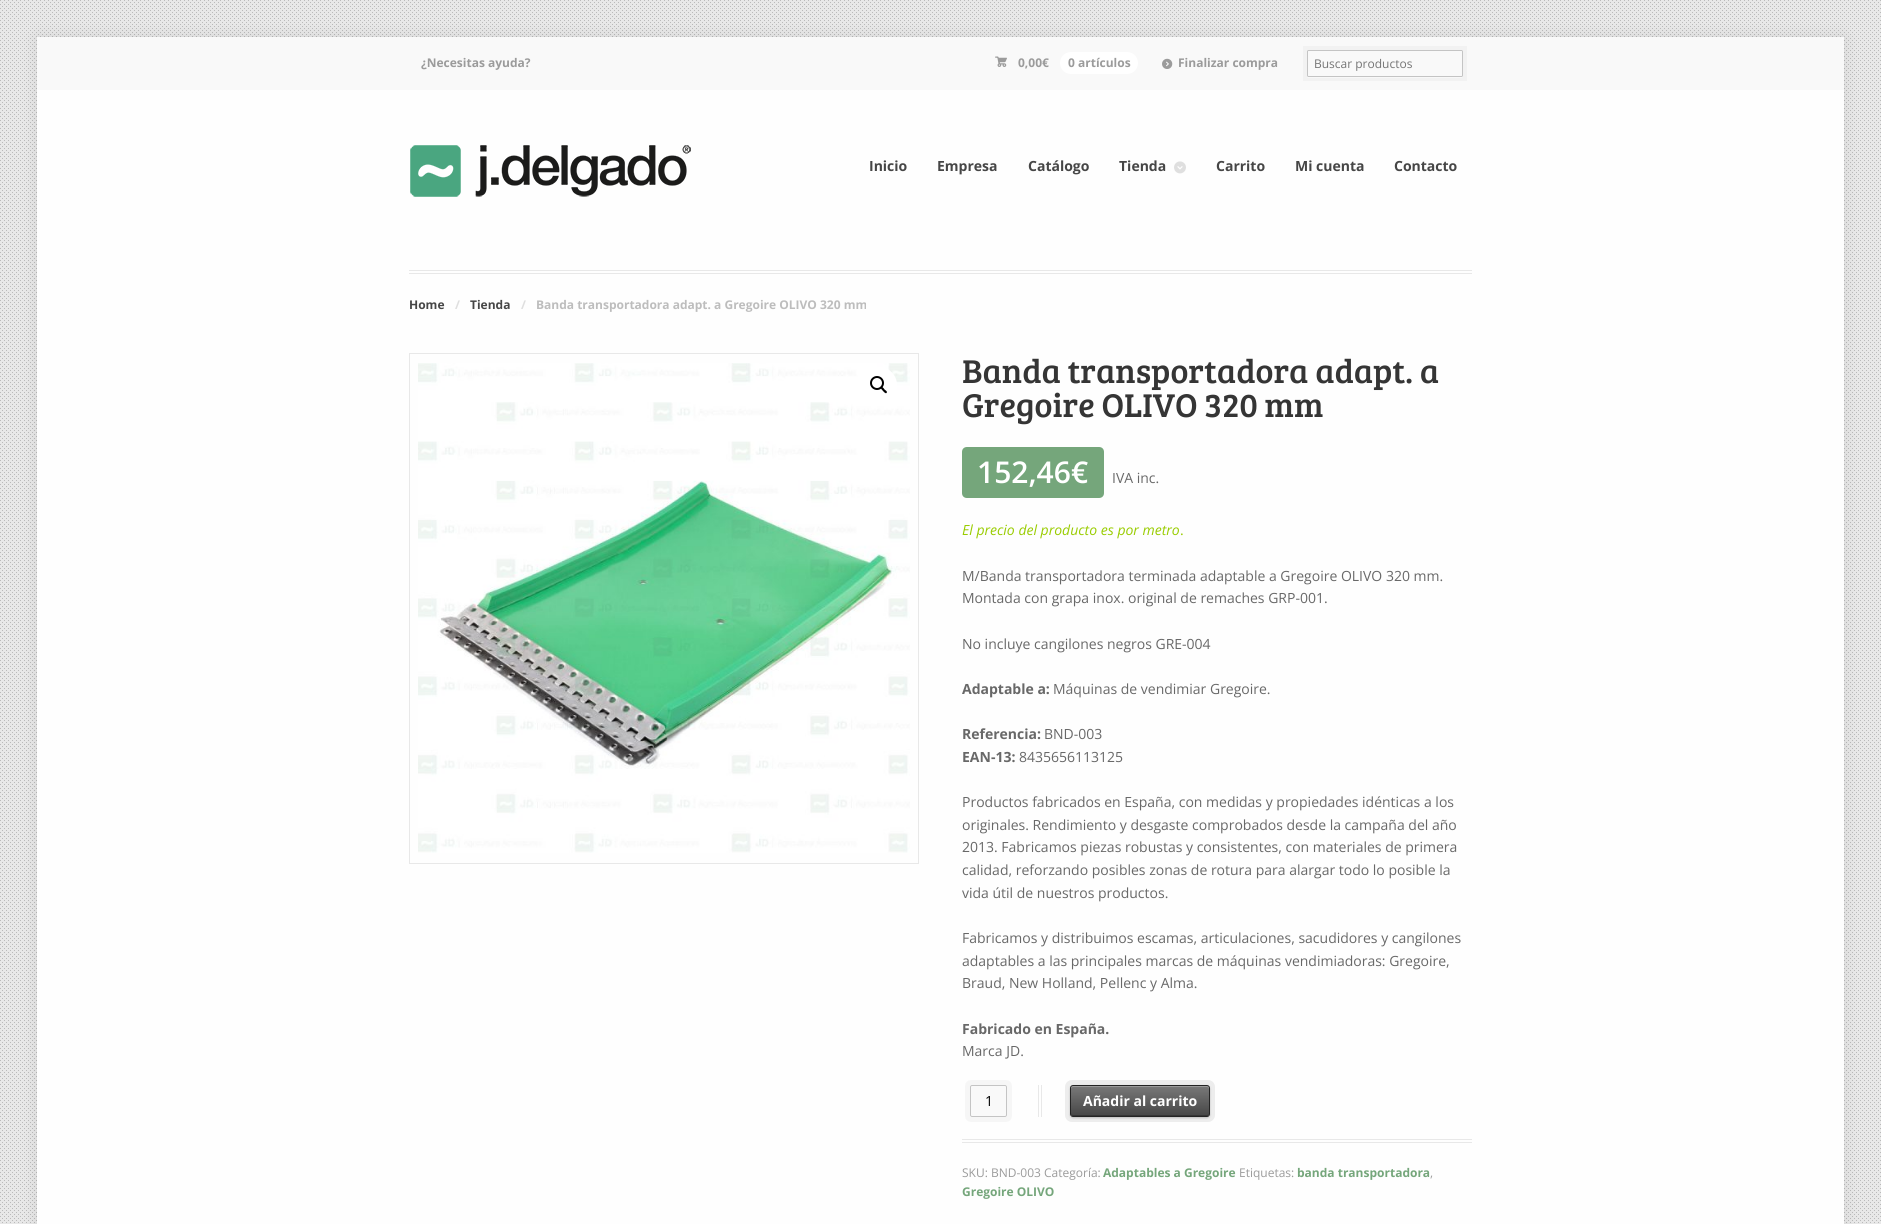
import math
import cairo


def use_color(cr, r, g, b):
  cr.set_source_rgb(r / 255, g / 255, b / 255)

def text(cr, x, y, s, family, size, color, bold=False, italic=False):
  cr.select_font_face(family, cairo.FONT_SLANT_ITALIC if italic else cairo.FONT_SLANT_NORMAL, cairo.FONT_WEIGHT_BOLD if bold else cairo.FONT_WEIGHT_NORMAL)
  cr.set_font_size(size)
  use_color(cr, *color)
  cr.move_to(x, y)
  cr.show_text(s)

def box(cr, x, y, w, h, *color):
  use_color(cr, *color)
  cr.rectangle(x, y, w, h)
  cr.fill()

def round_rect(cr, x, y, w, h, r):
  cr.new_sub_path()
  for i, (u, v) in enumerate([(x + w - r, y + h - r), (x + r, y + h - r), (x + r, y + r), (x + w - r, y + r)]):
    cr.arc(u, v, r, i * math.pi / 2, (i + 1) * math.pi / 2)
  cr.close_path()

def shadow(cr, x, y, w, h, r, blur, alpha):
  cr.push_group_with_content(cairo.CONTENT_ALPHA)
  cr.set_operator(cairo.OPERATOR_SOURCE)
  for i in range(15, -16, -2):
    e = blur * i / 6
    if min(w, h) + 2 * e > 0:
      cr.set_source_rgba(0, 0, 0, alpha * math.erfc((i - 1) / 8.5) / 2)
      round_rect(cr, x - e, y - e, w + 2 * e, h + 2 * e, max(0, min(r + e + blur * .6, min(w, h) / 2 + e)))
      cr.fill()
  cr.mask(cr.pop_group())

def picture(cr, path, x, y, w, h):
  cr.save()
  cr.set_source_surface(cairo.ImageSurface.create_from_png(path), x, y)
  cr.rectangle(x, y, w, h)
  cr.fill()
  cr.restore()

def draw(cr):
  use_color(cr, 232, 232, 232)
  cr.paint()
  picture(cr, "img_01.png", 0, 0, 1881, 1223)
  use_color(cr, 0, 0, 0)
  shadow(cr, 37, 37, 1807, 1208, 0, 7, 0.1)
  box(cr, 37, 90, 1807, 1134, 254, 254, 254)
  box(cr, 37, 37, 1807, 53, 249, 249, 249)
  use_color(cr, 255, 255, 255)
  round_rect(cr, 1060, 52, 78, 22, 11)
  cr.fill()
  picture(cr, "img_02.png", 1162, 58, 11, 11)
  cr.new_path()
  cr.move_to(1307, 76)
  cr.curve_to(1307, 77, 1307, 78, 1308, 78)
  cr.line_to(1462, 78)
  cr.line_to(1463, 76)
  cr.curve_to(1463, 76, 1462, 77, 1462, 77)
  cr.line_to(1308, 77)
  cr.curve_to(1308, 77, 1307, 76, 1307, 76)
  cr.close_path()
  cr.fill()
  cr.rectangle(1305, 48, 160, 31)
  cr.set_source_rgba(0, 0, 0, 0.03)
  cr.set_line_width(4)
  cr.stroke()
  round_rect(cr, 1307.5, 50.5, 155, 26, 1)
  use_color(cr, 196, 196, 196)
  cr.set_line_width(1)
  cr.stroke()
  box(cr, 409, 270, 1063, 1, 232, 232, 232)
  box(cr, 409, 273, 1063, 1, 232, 232, 232)
  picture(cr, "img_03.png", 410, 145, 281, 52)
  picture(cr, "img_04.png", 1174, 161, 12, 13)
  cr.rectangle(409.5, 353.5, 509, 510)
  cr.stroke()
  picture(cr, "img_05.png", 418, 363, 492, 490)
  use_color(cr, 255, 255, 255)
  cr.arc(879, 385, 18, 0, 2 * math.pi)
  cr.fill()
  cr.arc(877, 383, 6, 0, 2 * math.pi)
  use_color(cr, 0, 0, 0)
  cr.set_line_width(2)
  cr.stroke()
  cr.new_path()
  cr.move_to(881, 387)
  cr.curve_to(882, 386, 884, 388.5, 884.5, 389.5)
  cr.curve_to(885, 390, 888, 391.5, 886.5, 393)
  cr.curve_to(885.5, 394, 883.5, 391.5, 883, 391)
  cr.curve_to(882.5, 390, 880, 388.5, 881, 387)
  cr.close_path()
  cr.fill()
  use_color(cr, 117, 166, 123)
  cr.new_path()
  cr.move_to(967, 447)
  cr.line_to(1071, 447)
  cr.line_to(1071, 498)
  cr.line_to(967, 498)
  cr.curve_to(964, 498, 962, 496, 962, 493)
  cr.line_to(962, 452)
  cr.curve_to(962, 449, 964, 447, 967, 447)
  cr.close_path()
  cr.fill()
  cr.new_path()
  cr.move_to(1071, 447)
  cr.line_to(1099, 447)
  cr.curve_to(1102, 447, 1104, 449, 1104, 452)
  cr.line_to(1104, 493)
  cr.curve_to(1104, 496, 1102, 498, 1099, 498)
  cr.line_to(1071, 498)
  cr.close_path()
  cr.fill()
  box(cr, 1038, 1085, 1, 32, 232, 232, 232)
  box(cr, 1041, 1085, 1, 32, 232, 232, 232)
  round_rect(cr, 967.5, 1082.5, 42, 37, 3.5)
  use_color(cr, 246, 246, 246)
  cr.set_line_width(5)
  cr.stroke()
  use_color(cr, 249, 249, 249)
  round_rect(cr, 970.5, 1085.5, 36, 31, 1.5)
  cr.fill_preserve()
  use_color(cr, 196, 196, 196)
  cr.set_line_width(1)
  cr.stroke()
  use_color(cr, 0, 0, 0)
  shadow(cr, 1070, 1086, 140, 32, 3, 1, 0.2)
  round_rect(cr, 1067.5, 1082.5, 145, 37, 4.5)
  cr.set_source_rgba(0, 0, 0, 0.07)
  cr.set_line_width(5)
  cr.stroke()
  gradient = cairo.LinearGradient(1140, 1086, 1140, 1116)
  gradient.add_color_stop_rgba(0, 0.475, 0.475, 0.475, 1)
  gradient.add_color_stop_rgba(1, 0.275, 0.275, 0.275, 1)
  cr.set_source(gradient)
  round_rect(cr, 1071, 1086, 138, 30, 2)
  cr.fill()
  use_color(cr, 53, 53, 53)
  cr.new_path()
  cr.move_to(1071, 1113)
  cr.curve_to(1071, 1114, 1071, 1116, 1073, 1116)
  cr.line_to(1207, 1116)
  cr.curve_to(1209, 1116, 1209, 1114, 1209, 1113)
  cr.curve_to(1209, 1114, 1208, 1115, 1207, 1115)
  cr.line_to(1073, 1115)
  cr.curve_to(1072, 1115, 1071, 1114, 1071, 1113)
  cr.close_path()
  cr.fill()
  use_color(cr, 155, 155, 155)
  cr.new_path()
  cr.move_to(1073, 1087)
  cr.line_to(1207, 1087)
  cr.curve_to(1208, 1087, 1209, 1088, 1209, 1089)
  cr.curve_to(1209, 1088, 1209, 1086, 1207, 1086)
  cr.line_to(1073, 1086)
  cr.curve_to(1071, 1086, 1071, 1088, 1071, 1089)
  cr.curve_to(1071, 1088, 1072, 1087, 1073, 1087)
  cr.close_path()
  cr.fill()
  round_rect(cr, 1070.5, 1085.5, 139, 31, 2.5)
  use_color(cr, 36, 36, 36)
  cr.set_line_width(1)
  cr.stroke()
  box(cr, 962, 1139, 510, 1, 232, 232, 232)
  box(cr, 962, 1142, 510, 1, 232, 232, 232)
  text(cr, 421, 67, "¿Necesitas ayuda?", "Open Sans", 12, (155, 155, 155), bold=True)
  text(cr, 995, 67, "£", "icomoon", 12, (155, 155, 155))
  text(cr, 1018, 67, "0,00€", "Open Sans", 12, (155, 155, 155), bold=True)
  text(cr, 1068, 67, "0 artículos", "Open Sans", 12, (155, 155, 155), bold=True)
  text(cr, 1178, 67, "Finalizar compra", "Open Sans", 12, (155, 155, 155), bold=True)
  text(cr, 1314, 68, "Buscar productos", "Open Sans", 12, (117, 117, 117))
  text(cr, 869, 171, "Inicio", "Open Sans", 14, (70, 70, 70), bold=True)
  text(cr, 937, 171, "Empresa", "Open Sans", 14, (70, 70, 70), bold=True)
  text(cr, 1028, 171, "Catálogo", "Open Sans", 14, (70, 70, 70), bold=True)
  text(cr, 1119, 171, "Tienda", "Open Sans", 14, (70, 70, 70), bold=True)
  text(cr, 1216, 171, "Carrito", "Open Sans", 14, (70, 70, 70), bold=True)
  text(cr, 1295, 171, "Mi cuenta", "Open Sans", 14, (70, 70, 70), bold=True)
  text(cr, 1394, 171, "Contacto", "Open Sans", 14, (70, 70, 70), bold=True)
  text(cr, 409, 309, "Home", "Open Sans", 12, (70, 70, 70), bold=True)
  text(cr, 455, 309, "/", "Open Sans", 12, (223, 223, 223), bold=True)
  text(cr, 470, 309, "Tienda", "Open Sans", 12, (70, 70, 70), bold=True)
  text(cr, 521, 309, "/", "Open Sans", 12, (223, 223, 223), bold=True)
  text(cr, 536, 309, "Banda transportadora adapt. a Gregoire OLIVO 320 mm", "Open Sans", 12, (189, 189, 189), bold=True)
  text(cr, 962, 383, "Banda transportadora adapt. a", "Bree Serif", 34, (53, 53, 53))
  text(cr, 962, 417, "Gregoire OLIVO 320 mm", "Bree Serif", 34, (53, 53, 53))
  text(cr, 977, 483, "152,46€", "Open Sans SemiBold", 30, (255, 255, 255))
  text(cr, 1112, 483, "IVA inc.", "Open Sans", 14, (104, 104, 104))
  text(cr, 962, 535, "El precio del producto es por metro", "Open Sans", 14, (153, 204, 0), italic=True)
  text(cr, 1180, 535, ".", "Open Sans", 14, (153, 204, 0))
  text(cr, 962, 581, "M/Banda transportadora terminada adaptable a Gregoire OLIVO 320 mm.", "Open Sans", 14, (104, 104, 104))
  text(cr, 962, 603, "Montada con grapa inox. original de remaches GRP-001.", "Open Sans", 14, (104, 104, 104))
  text(cr, 962, 649, "No incluye cangilones negros GRE-004", "Open Sans", 14, (104, 104, 104))
  text(cr, 962, 694, "Adaptable a:", "Open Sans", 14, (104, 104, 104), bold=True)
  text(cr, 1053, 694, "Máquinas de vendimiar Gregoire.", "Open Sans", 14, (104, 104, 104))
  text(cr, 962, 739, "Referencia:", "Open Sans", 14, (104, 104, 104), bold=True)
  text(cr, 1044, 739, "BND-003", "Open Sans", 14, (104, 104, 104))
  text(cr, 962, 762, "EAN-13:", "Open Sans", 14, (104, 104, 104), bold=True)
  text(cr, 1019, 762, "8435656113125", "Open Sans", 14, (104, 104, 104))
  text(cr, 962, 807, "Productos fabricados en España, con medidas y propiedades idénticas a los", "Open Sans", 14, (104, 104, 104))
  text(cr, 962, 830, "originales. Rendimiento y desgaste comprobados desde la campaña del año", "Open Sans", 14, (104, 104, 104))
  text(cr, 962, 852, "2013. Fabricamos piezas robustas y consistentes, con materiales de primera", "Open Sans", 14, (104, 104, 104))
  text(cr, 962, 875, "calidad, reforzando posibles zonas de rotura para alargar todo lo posible la", "Open Sans", 14, (104, 104, 104))
  text(cr, 962, 898, "vida útil de nuestros productos.", "Open Sans", 14, (104, 104, 104))
  text(cr, 962, 943, "Fabricamos y distribuimos escamas, articulaciones, sacudidores y cangilones", "Open Sans", 14, (104, 104, 104))
  text(cr, 962, 966, "adaptables a las principales marcas de máquinas vendimiadoras: Gregoire,", "Open Sans", 14, (104, 104, 104))
  text(cr, 962, 988, "Braud, New Holland, Pellenc y Alma.", "Open Sans", 14, (104, 104, 104))
  text(cr, 962, 1034, "Fabricado en España.", "Open Sans", 14, (104, 104, 104), bold=True)
  text(cr, 962, 1056, "Marca JD.", "Open Sans", 14, (104, 104, 104))
  text(cr, 985, 1106, "1", "Open Sans", 14, (0, 0, 0))
  text(cr, 1083, 1106, "Añadir al carrito", "Open Sans", 14, (255, 255, 255), bold=True)
  text(cr, 962, 1177, "SKU: BND-003 Categoría:", "Open Sans", 12, (155, 155, 155))
  text(cr, 1103, 1177, "Adaptables a Gregoire", "Open Sans", 12, (117, 166, 123), bold=True)
  text(cr, 1239, 1177, "Etiquetas:", "Open Sans", 12, (155, 155, 155))
  text(cr, 1297, 1177, "banda transportadora", "Open Sans", 12, (117, 166, 123), bold=True)
  text(cr, 1430, 1177, ",", "Open Sans", 12, (155, 155, 155))
  text(cr, 962, 1196, "Gregoire OLIVO", "Open Sans", 12, (117, 166, 123), bold=True)


surface = cairo.ImageSurface(cairo.FORMAT_RGB24, 1881, 1224)
cr = cairo.Context(surface)
options = cairo.FontOptions()
options.set_hint_metrics(cairo.HINT_METRICS_OFF)
options.set_hint_style(cairo.HINT_STYLE_NONE)
cr.set_font_options(options)
cr.set_miter_limit(4)
draw(cr)
surface.write_to_png("out.png")
